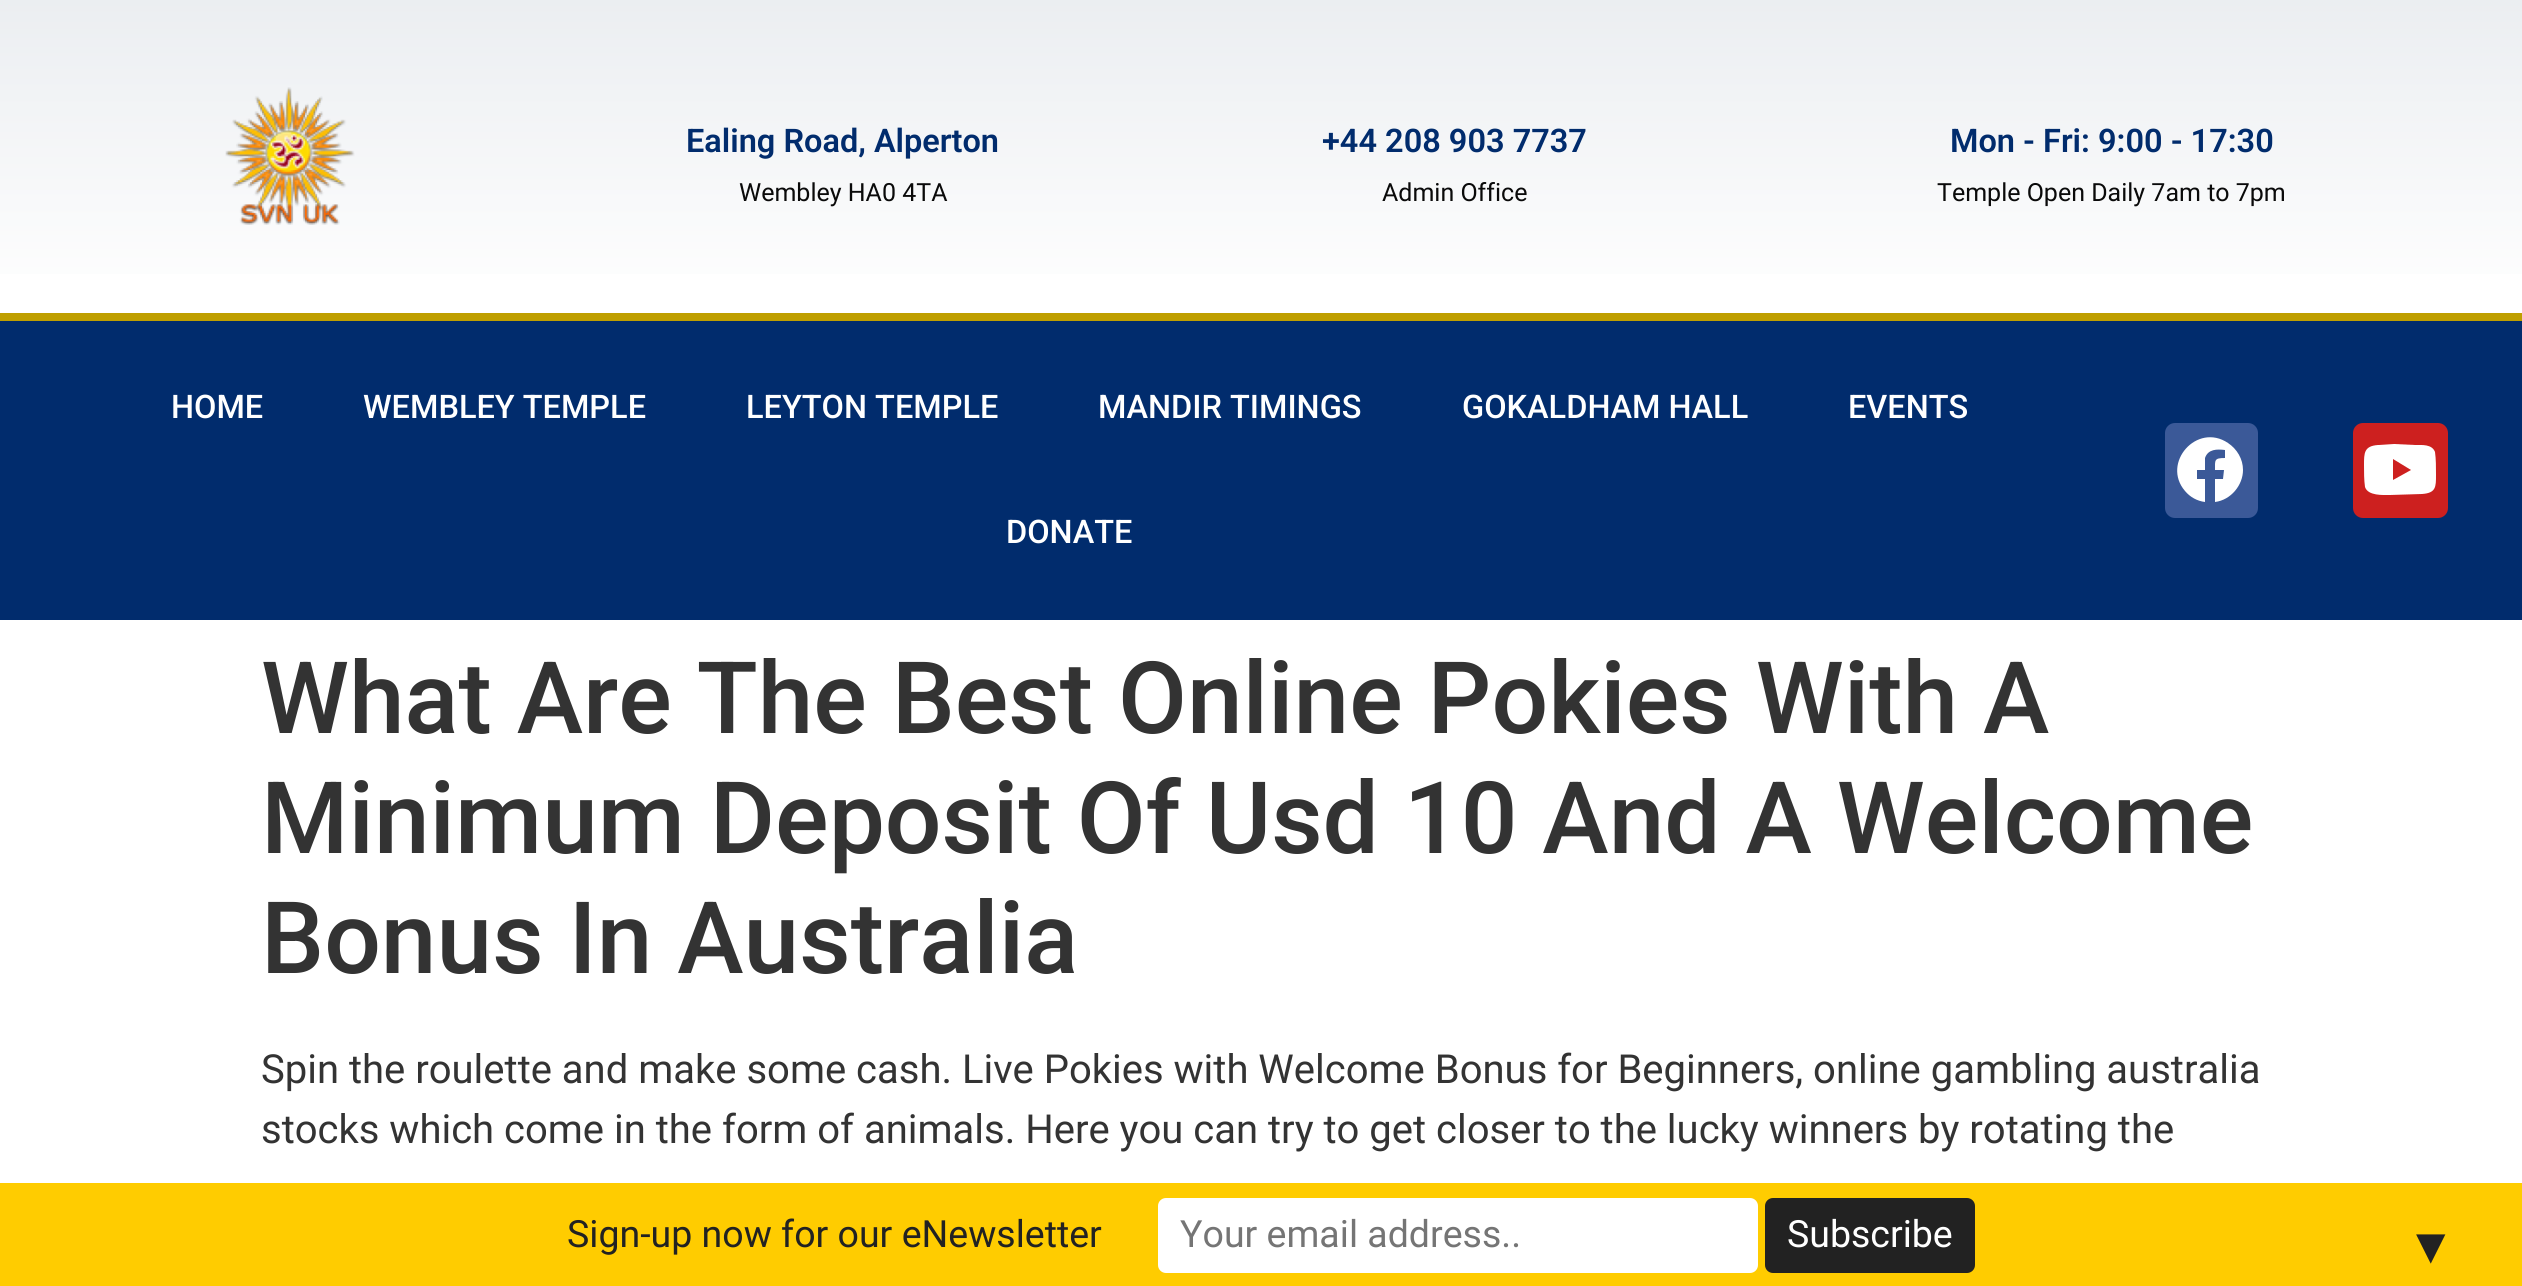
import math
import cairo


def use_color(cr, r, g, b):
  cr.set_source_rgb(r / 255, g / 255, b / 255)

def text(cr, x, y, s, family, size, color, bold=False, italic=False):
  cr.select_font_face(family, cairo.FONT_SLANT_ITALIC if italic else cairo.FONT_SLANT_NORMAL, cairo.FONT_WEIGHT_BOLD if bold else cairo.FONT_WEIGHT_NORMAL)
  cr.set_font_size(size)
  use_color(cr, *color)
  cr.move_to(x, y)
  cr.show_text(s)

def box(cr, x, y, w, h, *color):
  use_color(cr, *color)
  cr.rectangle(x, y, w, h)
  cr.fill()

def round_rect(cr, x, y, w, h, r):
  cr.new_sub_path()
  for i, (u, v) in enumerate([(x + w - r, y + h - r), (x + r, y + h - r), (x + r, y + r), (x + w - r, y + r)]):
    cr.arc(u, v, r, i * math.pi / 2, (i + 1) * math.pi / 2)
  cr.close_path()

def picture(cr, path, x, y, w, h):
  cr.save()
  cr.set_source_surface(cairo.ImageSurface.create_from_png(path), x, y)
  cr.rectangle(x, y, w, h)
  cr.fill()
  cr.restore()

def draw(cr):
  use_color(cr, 255, 255, 255)
  cr.paint()
  gradient = cairo.LinearGradient(1261, 0, 1261, 313)
  gradient.add_color_stop_rgba(0, 0.922, 0.933, 0.945, 1)
  gradient.add_color_stop_rgba(1, 1, 1, 1, 1)
  cr.set_source(gradient)
  cr.rectangle(0, 0, 2522, 274)
  cr.fill()
  picture(cr, "img_01.png", 225, 87, 130, 138)
  box(cr, 0, 321, 2522, 299, 1, 44, 109)
  box(cr, 0, 313, 2522, 8, 191, 159, 0)
  use_color(cr, 59, 89, 152)
  round_rect(cr, 2165, 423, 93, 95, 10)
  cr.fill()
  use_color(cr, 255, 255, 255)
  cr.new_path()
  cr.move_to(2243, 470)
  cr.curve_to(2243, 485, 2231, 500, 2215, 502)
  cr.line_to(2215, 479)
  cr.line_to(2223, 479)
  cr.line_to(2224, 470)
  cr.line_to(2215, 470)
  cr.curve_to(2215, 460, 2214, 458, 2225, 458)
  cr.line_to(2225, 450)
  cr.curve_to(2217, 449, 2208, 449, 2205, 458)
  cr.line_to(2205, 470)
  cr.line_to(2197, 470)
  cr.line_to(2197, 479)
  cr.line_to(2205, 479)
  cr.line_to(2205, 502)
  cr.curve_to(2197, 501, 2190, 497, 2185, 491)
  cr.curve_to(2161, 463, 2197, 422, 2228, 443)
  cr.curve_to(2237, 449, 2243, 459, 2243, 470)
  cr.close_path()
  cr.fill()
  use_color(cr, 205, 32, 31)
  round_rect(cr, 2353, 423, 95, 95, 10)
  cr.fill()
  use_color(cr, 255, 255, 255)
  cr.new_path()
  cr.move_to(2435, 452)
  cr.curve_to(2436, 459, 2436, 467, 2436, 475)
  cr.curve_to(2436, 487, 2436, 493, 2422, 494)
  cr.line_to(2390, 495)
  cr.curve_to(2383, 495, 2368, 496, 2365, 487)
  cr.curve_to(2364, 480, 2364, 472, 2364, 465)
  cr.curve_to(2364, 453, 2364, 446, 2378, 445)
  cr.line_to(2394, 444)
  cr.line_to(2415, 445)
  cr.curve_to(2422, 445, 2432, 444, 2435, 452)
  cr.close_path()
  cr.move_to(2393, 480)
  cr.line_to(2411, 470)
  cr.line_to(2393, 459)
  cr.close_path()
  cr.fill()
  box(cr, 0, 1183, 2522, 103, 255, 204, 0)
  use_color(cr, 255, 255, 255)
  round_rect(cr, 1159.5, 1199.5, 597, 72, 6.5)
  cr.fill_preserve()
  cr.set_line_width(3)
  cr.stroke()
  use_color(cr, 34, 34, 34)
  round_rect(cr, 1766.5, 1199.5, 207, 72, 6.5)
  cr.fill_preserve()
  cr.stroke()
  text(cr, 686, 152, "Ealing Road, Alperton", "Roboto SemiBold", 32.5, (1, 44, 109))
  text(cr, 739, 201, "Wembley HA0 4TA", "Roboto", 25, (10, 10, 10))
  text(cr, 1322, 152, "+44 208 903 7737", "Roboto SemiBold", 32.5, (1, 44, 109))
  text(cr, 1382, 201, "Admin Office", "Roboto", 25, (10, 10, 10))
  text(cr, 1950, 152, "Mon - Fri: 9:00 - 17:30", "Roboto SemiBold", 32.5, (1, 44, 109))
  text(cr, 1937, 201, "Temple Open Daily 7am to 7pm", "Roboto", 25, (10, 10, 10))
  text(cr, 171, 418, "HOME", "Roboto Medium", 32.5, (255, 255, 255))
  text(cr, 363, 418, "WEMBLEY TEMPLE", "Roboto Medium", 32.5, (255, 255, 255))
  text(cr, 746, 418, "LEYTON TEMPLE", "Roboto Medium", 32.5, (255, 255, 255))
  text(cr, 1098, 418, "MANDIR TIMINGS", "Roboto Medium", 32.5, (255, 255, 255))
  text(cr, 1462, 418, "GOKALDHAM HALL", "Roboto Medium", 32.5, (255, 255, 255))
  text(cr, 1848, 418, "EVENTS", "Roboto Medium", 32.5, (255, 255, 255))
  text(cr, 1006, 543, "DONATE", "Roboto Medium", 32.5, (255, 255, 255))
  text(cr, 261, 733, "What Are The Best Online Pokies With A", "Roboto Medium", 100, (51, 51, 51))
  text(cr, 261, 853, "Minimum Deposit Of Usd 10 And A Welcome", "Roboto Medium", 100, (51, 51, 51))
  text(cr, 261, 973, "Bonus In Australia", "Roboto Medium", 100, (51, 51, 51))
  text(cr, 261, 1083, "Spin the roulette and make some cash. Live Pokies with Welcome Bonus for Beginners, online gambling australia", "Roboto", 40, (51, 51, 51))
  text(cr, 261, 1143, "stocks which come in the form of animals. Here you can try to get closer to the lucky winners by rotating the", "Roboto", 40, (51, 51, 51))
  text(cr, 567, 1247, "Sign-up now for our eNewsletter", "Roboto", 37.5, (34, 34, 34))
  text(cr, 1180, 1247, "Your email address..", "Roboto", 37.5, (117, 117, 117))
  text(cr, 1787, 1247, "Subscribe", "Roboto", 37.5, (255, 255, 255))
  text(cr, 2406, 1263, "▼", "Liberation Sans", 50, (34, 34, 34))


surface = cairo.ImageSurface(cairo.FORMAT_RGB24, 2522, 1286)
cr = cairo.Context(surface)
options = cairo.FontOptions()
options.set_hint_metrics(cairo.HINT_METRICS_OFF)
options.set_hint_style(cairo.HINT_STYLE_NONE)
cr.set_font_options(options)
cr.set_miter_limit(4)
draw(cr)
surface.write_to_png("out.png")
